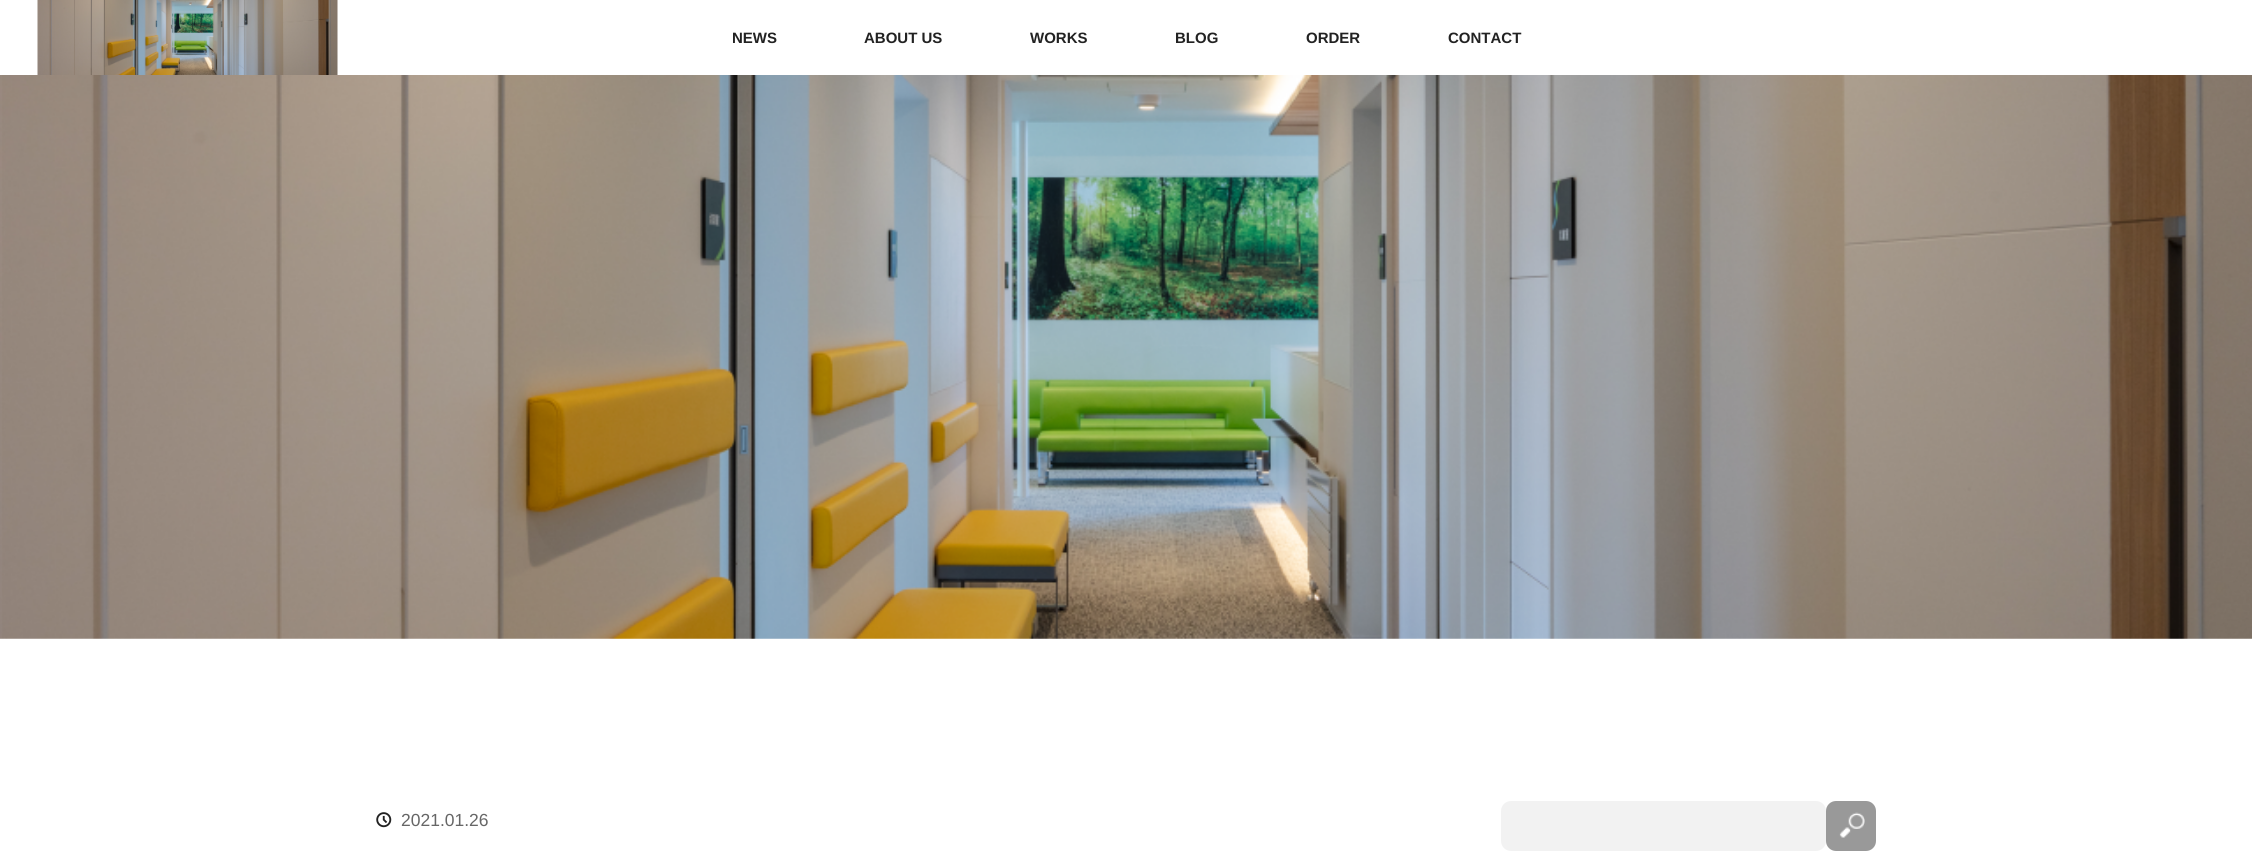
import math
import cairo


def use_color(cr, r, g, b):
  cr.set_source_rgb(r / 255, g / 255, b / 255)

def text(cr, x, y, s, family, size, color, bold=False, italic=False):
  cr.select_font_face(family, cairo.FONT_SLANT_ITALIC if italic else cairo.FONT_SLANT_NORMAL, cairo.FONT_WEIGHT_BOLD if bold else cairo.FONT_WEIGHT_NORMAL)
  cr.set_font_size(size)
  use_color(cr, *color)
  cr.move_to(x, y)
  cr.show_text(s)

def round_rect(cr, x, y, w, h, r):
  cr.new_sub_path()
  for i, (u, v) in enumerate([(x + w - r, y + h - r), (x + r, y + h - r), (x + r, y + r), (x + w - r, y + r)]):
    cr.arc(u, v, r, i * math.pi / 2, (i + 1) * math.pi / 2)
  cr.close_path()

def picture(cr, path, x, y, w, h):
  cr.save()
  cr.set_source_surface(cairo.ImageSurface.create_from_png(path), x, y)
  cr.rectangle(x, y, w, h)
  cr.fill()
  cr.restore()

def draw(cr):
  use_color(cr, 255, 255, 255)
  cr.paint()
  picture(cr, "img_01.png", 37, 0, 301, 75)
  picture(cr, "img_02.png", 0, 75, 2252, 564)
  picture(cr, "img_03.png", 376, 812, 16, 16)
  use_color(cr, 242, 242, 242)
  round_rect(cr, 1501, 801, 325, 50, 10)
  cr.fill()
  use_color(cr, 153, 153, 153)
  round_rect(cr, 1826, 801, 50, 50, 10)
  cr.fill()
  picture(cr, "img_04.png", 1839, 812, 26, 26)
  text(cr, 732, 43, "NEWS", "Liberation Sans", 15, (34, 34, 34), bold=True)
  text(cr, 864, 43, "ABOUT US", "Liberation Sans", 15, (34, 34, 34), bold=True)
  text(cr, 1030, 43, "WORKS", "Liberation Sans", 15, (34, 34, 34), bold=True)
  text(cr, 1175, 43, "BLOG", "Liberation Sans", 15, (34, 34, 34), bold=True)
  text(cr, 1306, 43, "ORDER", "Liberation Sans", 15, (34, 34, 34), bold=True)
  text(cr, 1448, 43, "CONTACT", "Liberation Sans", 15, (34, 34, 34), bold=True)
  text(cr, 401, 826, "2021.01.26", "Liberation Sans", 17.5, (102, 102, 102))


surface = cairo.ImageSurface(cairo.FORMAT_RGB24, 2252, 867)
cr = cairo.Context(surface)
options = cairo.FontOptions()
options.set_hint_metrics(cairo.HINT_METRICS_OFF)
options.set_hint_style(cairo.HINT_STYLE_NONE)
cr.set_font_options(options)
cr.set_miter_limit(4)
draw(cr)
surface.write_to_png("out.png")
